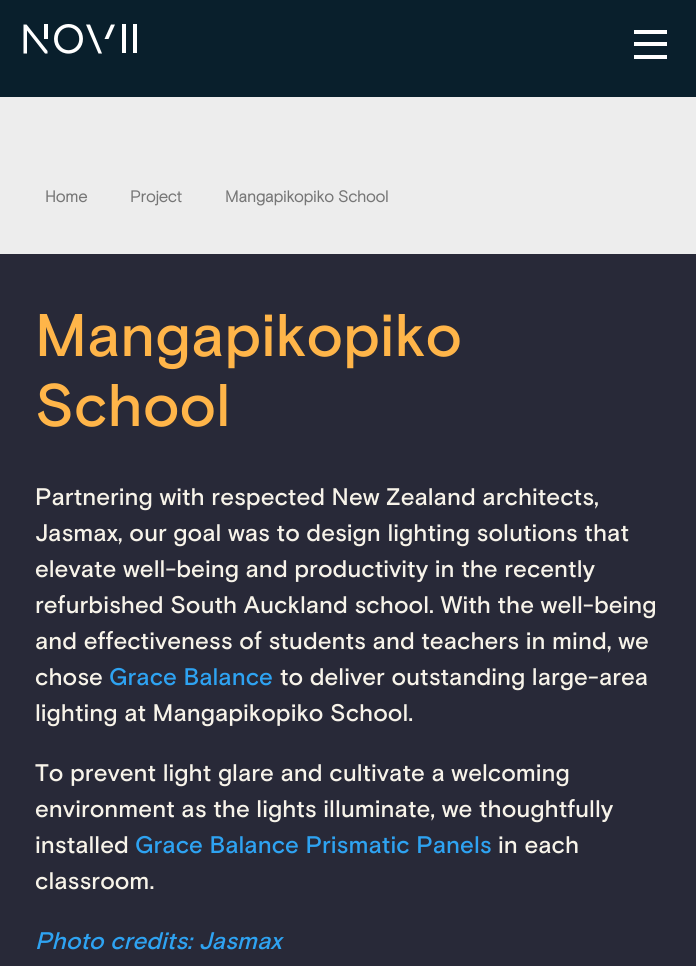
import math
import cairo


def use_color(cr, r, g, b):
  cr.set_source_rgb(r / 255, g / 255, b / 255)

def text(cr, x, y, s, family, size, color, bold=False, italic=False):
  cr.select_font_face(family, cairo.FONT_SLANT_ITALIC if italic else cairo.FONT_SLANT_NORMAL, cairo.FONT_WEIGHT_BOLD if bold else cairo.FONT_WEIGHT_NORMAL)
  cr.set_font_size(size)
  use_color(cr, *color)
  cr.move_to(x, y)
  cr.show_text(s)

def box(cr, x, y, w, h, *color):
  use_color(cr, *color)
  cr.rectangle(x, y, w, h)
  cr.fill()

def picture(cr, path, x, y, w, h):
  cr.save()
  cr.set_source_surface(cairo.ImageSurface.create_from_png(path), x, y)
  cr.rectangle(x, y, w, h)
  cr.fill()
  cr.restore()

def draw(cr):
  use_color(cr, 40, 41, 56)
  cr.paint()
  box(cr, 0, 0, 696, 97, 9, 31, 44)
  box(cr, 44, 24, 4, 15, 255, 255, 255)
  cr.set_fill_rule(cairo.FILL_RULE_EVEN_ODD)
  cr.new_path()
  cr.move_to(26.5, 24.5)
  cr.line_to(23.5, 24.5)
  cr.line_to(23.5, 53.5)
  cr.line_to(27, 53.5)
  cr.line_to(27, 30.5)
  cr.line_to(45, 53.5)
  cr.line_to(47.5, 53.5)
  cr.line_to(47.5, 51)
  cr.close_path()
  cr.fill()
  picture(cr, "img_01.png", 54, 24, 29, 30)
  cr.new_path()
  cr.move_to(104.5, 39)
  cr.line_to(108.5, 39)
  cr.line_to(115, 24.5)
  cr.line_to(111, 24.5)
  cr.close_path()
  cr.move_to(86, 24.5)
  cr.line_to(98.5, 53.5)
  cr.line_to(102, 53.5)
  cr.line_to(90, 24.5)
  cr.close_path()
  cr.fill()
  box(cr, 122, 24, 4, 29, 255, 255, 255)
  box(cr, 133, 24, 4, 29, 255, 255, 255)
  box(cr, 634, 30, 33, 4, 255, 255, 255)
  box(cr, 634, 42, 33, 4, 255, 255, 255)
  box(cr, 634, 55, 33, 4, 255, 255, 255)
  box(cr, 0, 97, 696, 157, 237, 237, 237)
  text(cr, 45, 202, "Home", "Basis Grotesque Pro", 16, (118, 118, 118), bold=True)
  text(cr, 130, 202, "Project", "Basis Grotesque Pro", 16, (118, 118, 118), bold=True)
  text(cr, 225, 202, "Mangapikopiko School", "Basis Grotesque Pro", 16, (118, 118, 118), bold=True)
  text(cr, 35, 356, "Mangapikopiko", "Basis Grotesque Pro Medium", 60, (255, 181, 73))
  text(cr, 35, 426, "School", "Basis Grotesque Pro Medium", 60, (255, 181, 73))
  text(cr, 35, 505, "Partnering with respected New Zealand architects,", "Basis Grotesque Pro Medium", 24, (247, 243, 233))
  text(cr, 35, 541, "Jasmax, our goal was to design lighting solutions that", "Basis Grotesque Pro Medium", 24, (247, 243, 233))
  text(cr, 35, 577, "elevate well-being and productivity in the recently", "Basis Grotesque Pro Medium", 24, (247, 243, 233))
  text(cr, 35, 613, "refurbished South Auckland school. With the well-being", "Basis Grotesque Pro Medium", 24, (247, 243, 233))
  text(cr, 35, 649, "and effectiveness of students and teachers in mind, we", "Basis Grotesque Pro Medium", 24, (247, 243, 233))
  text(cr, 35, 685, "chose", "Basis Grotesque Pro Medium", 24, (247, 243, 233))
  text(cr, 109, 685, "Grace Balance", "Basis Grotesque Pro Medium", 24, (46, 163, 242))
  text(cr, 280, 685, "to deliver outstanding large-area", "Basis Grotesque Pro Medium", 24, (247, 243, 233))
  text(cr, 35, 721, "lighting at Mangapikopiko School.", "Basis Grotesque Pro Medium", 24, (247, 243, 233))
  text(cr, 35, 781, "To prevent light glare and cultivate a welcoming", "Basis Grotesque Pro Medium", 24, (247, 243, 233))
  text(cr, 35, 817, "environment as the lights illuminate, we thoughtfully", "Basis Grotesque Pro Medium", 24, (247, 243, 233))
  text(cr, 35, 853, "installed", "Basis Grotesque Pro Medium", 24, (247, 243, 233))
  text(cr, 135, 853, "Grace Balance Prismatic Panels", "Basis Grotesque Pro Medium", 24, (46, 163, 242))
  text(cr, 498, 853, "in each", "Basis Grotesque Pro Medium", 24, (247, 243, 233))
  text(cr, 35, 889, "classroom.", "Basis Grotesque Pro Medium", 24, (247, 243, 233))
  text(cr, 35, 949, "Photo credits: Jasmax", "Basis Grotesque Pro Medium", 24, (46, 163, 242), italic=True)


surface = cairo.ImageSurface(cairo.FORMAT_RGB24, 696, 966)
cr = cairo.Context(surface)
options = cairo.FontOptions()
options.set_hint_metrics(cairo.HINT_METRICS_OFF)
options.set_hint_style(cairo.HINT_STYLE_NONE)
cr.set_font_options(options)
cr.set_miter_limit(4)
draw(cr)
surface.write_to_png("out.png")
